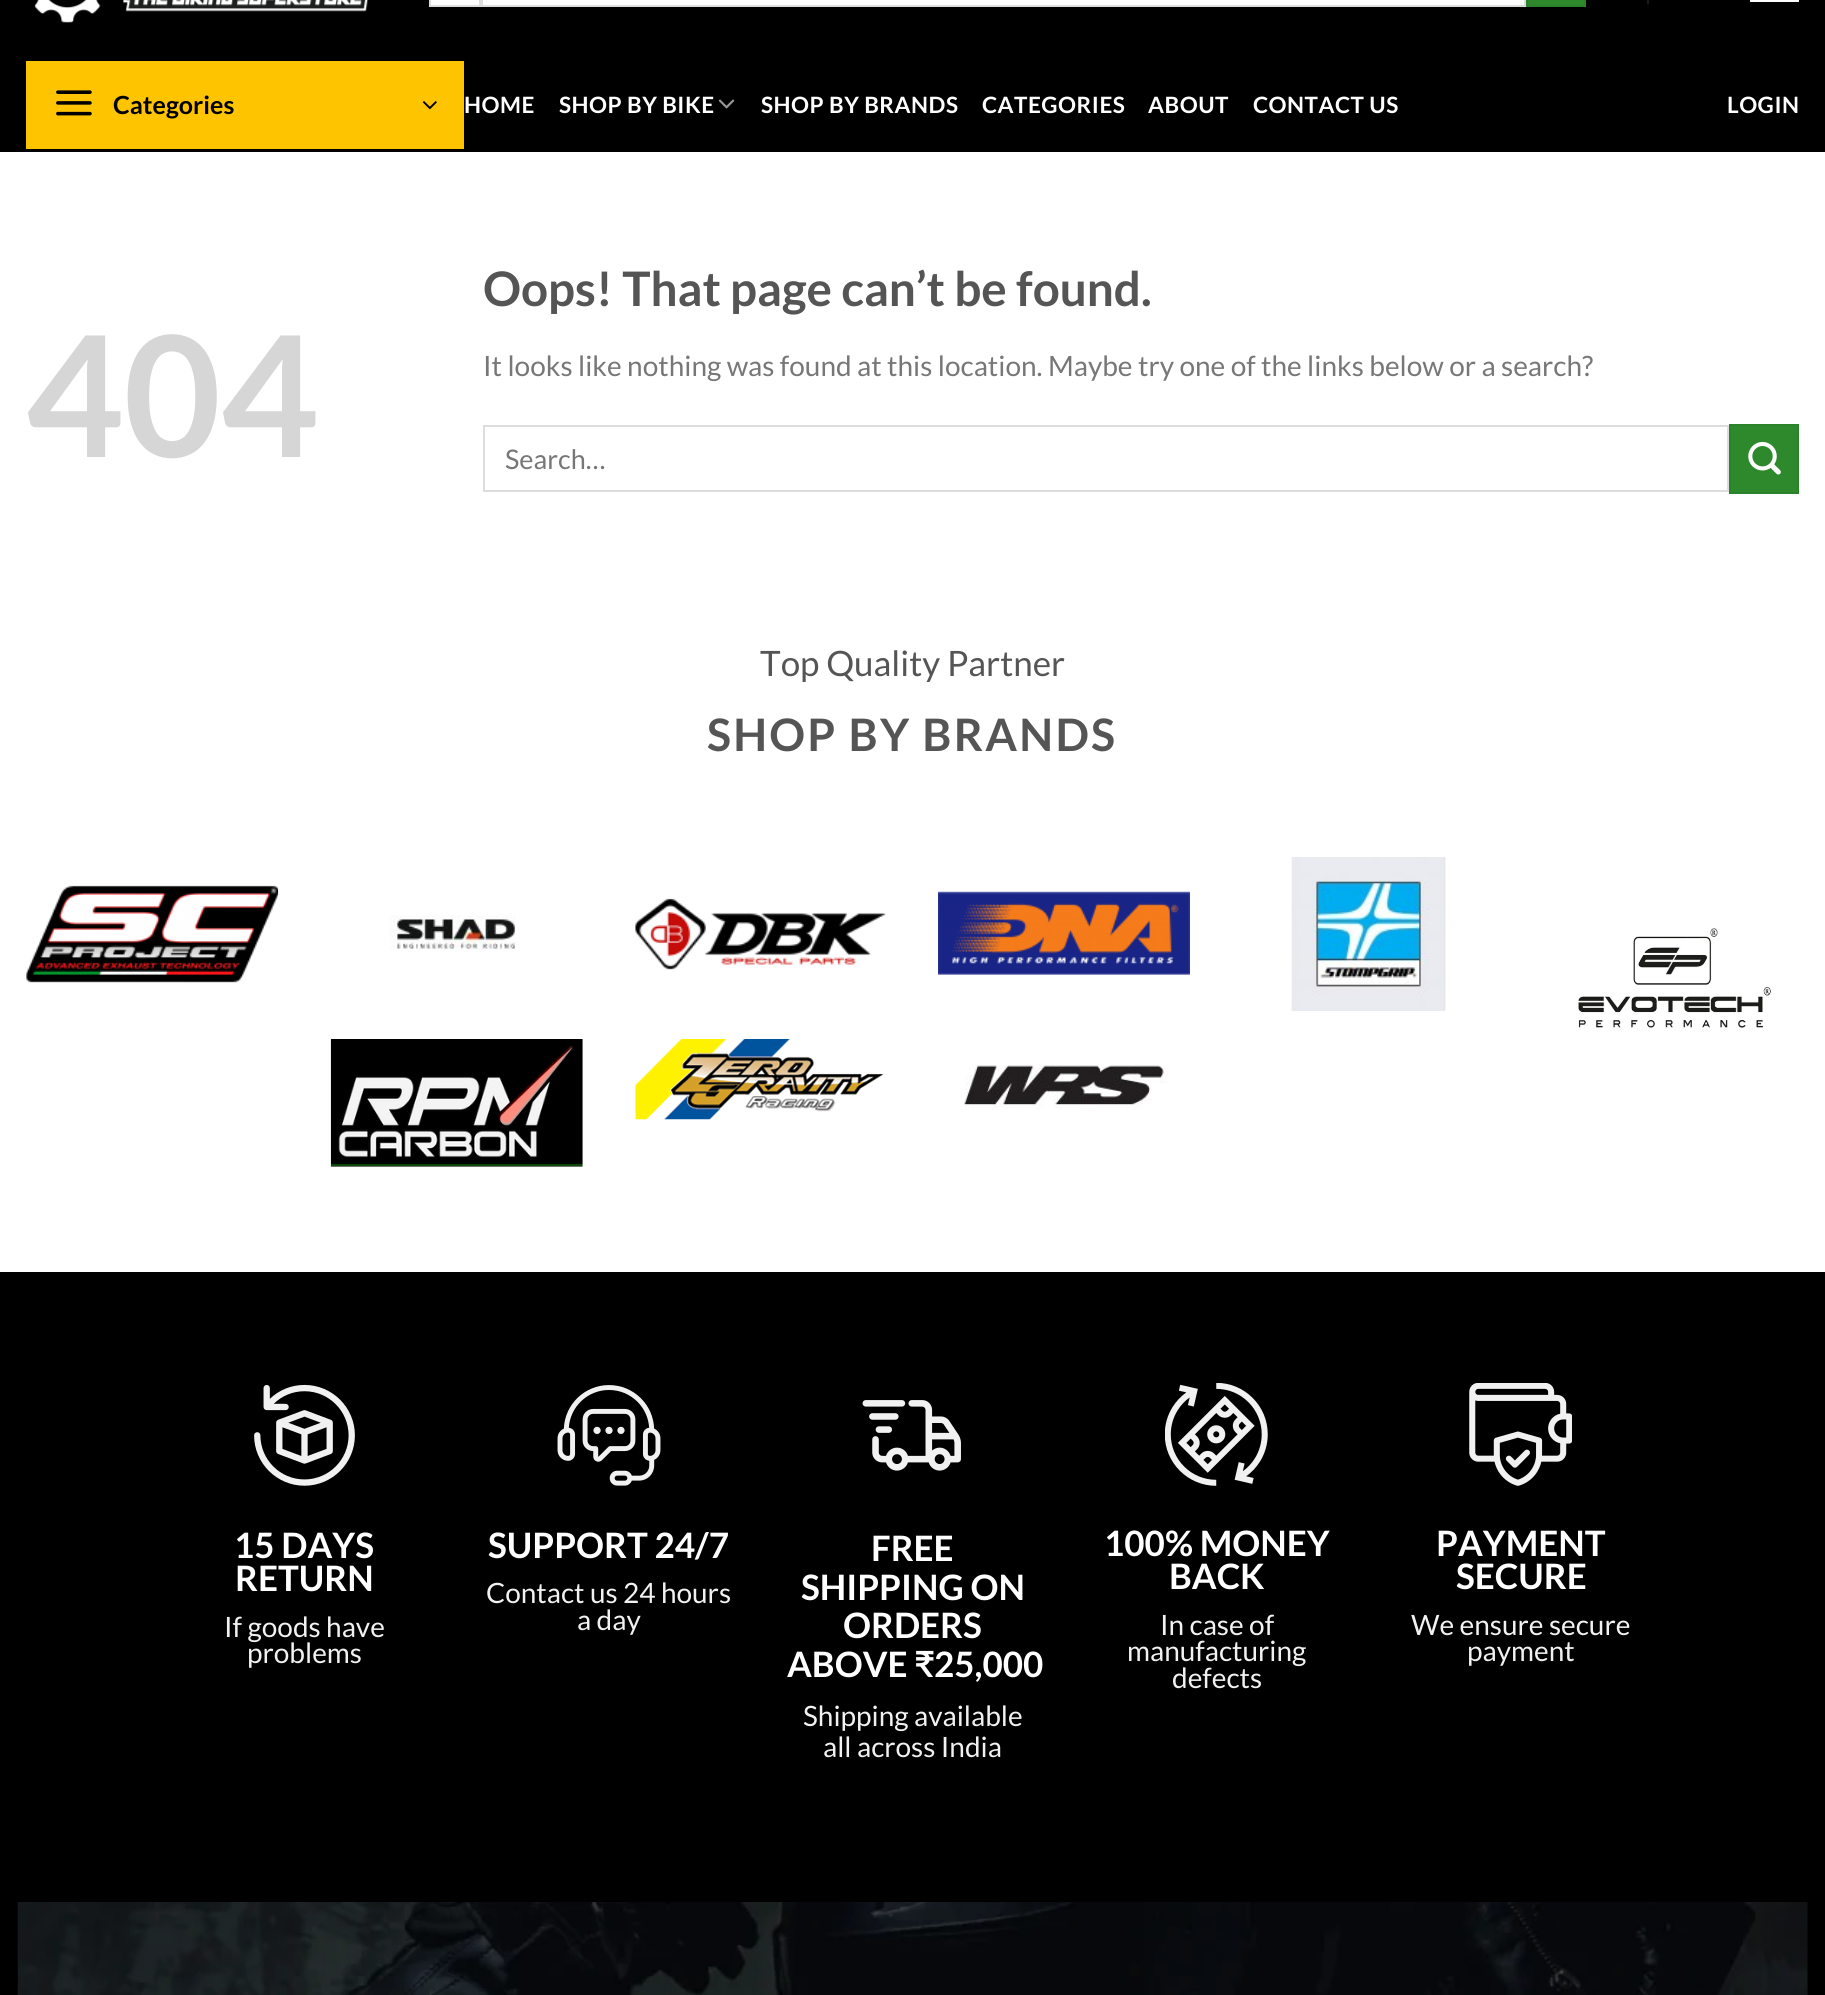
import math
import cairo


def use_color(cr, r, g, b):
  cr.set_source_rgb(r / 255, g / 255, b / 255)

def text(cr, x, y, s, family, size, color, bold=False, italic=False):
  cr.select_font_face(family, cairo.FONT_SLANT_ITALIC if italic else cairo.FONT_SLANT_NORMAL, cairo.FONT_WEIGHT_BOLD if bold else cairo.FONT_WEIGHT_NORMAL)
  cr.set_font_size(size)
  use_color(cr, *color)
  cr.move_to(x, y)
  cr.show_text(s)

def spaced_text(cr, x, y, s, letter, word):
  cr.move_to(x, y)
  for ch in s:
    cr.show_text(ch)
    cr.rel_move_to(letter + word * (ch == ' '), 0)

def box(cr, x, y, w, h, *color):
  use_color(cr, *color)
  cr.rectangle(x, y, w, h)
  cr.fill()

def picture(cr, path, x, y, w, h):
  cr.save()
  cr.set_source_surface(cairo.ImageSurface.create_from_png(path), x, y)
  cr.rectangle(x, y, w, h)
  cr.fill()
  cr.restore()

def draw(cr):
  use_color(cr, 255, 255, 255)
  cr.paint()
  box(cr, 0, 0, 1825, 152, 0, 0, 0)
  picture(cr, "img_01.png", 34, 0, 335, 23)
  use_color(cr, 255, 255, 255)
  cr.rectangle(430, -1, 50, 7)
  cr.fill_preserve()
  use_color(cr, 221, 221, 221)
  cr.stroke()
  use_color(cr, 255, 255, 255)
  cr.rectangle(482, -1, 1043, 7)
  cr.fill_preserve()
  use_color(cr, 221, 221, 221)
  cr.stroke()
  use_color(cr, 45, 137, 44)
  cr.rectangle(1527, -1, 58, 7)
  cr.fill_preserve()
  use_color(cr, 43, 130, 42)
  cr.stroke()
  box(cr, 1647, 0, 2, 4, 26, 26, 26)
  cr.rectangle(1752, -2, 45, 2)
  use_color(cr, 255, 255, 255)
  cr.set_line_width(4)
  cr.stroke()
  box(cr, 26, 61, 438, 88, 255, 196, 0)
  picture(cr, "img_02.png", 56, 90, 36, 26)
  picture(cr, "img_03.png", 422, 101, 15, 9)
  picture(cr, "img_04.png", 718, 99, 17, 10)
  cr.rectangle(484, 426, 1244, 65)
  use_color(cr, 221, 221, 221)
  cr.set_line_width(2)
  cr.stroke()
  use_color(cr, 45, 137, 44)
  cr.rectangle(1730, 425, 68, 68)
  cr.fill_preserve()
  use_color(cr, 43, 130, 42)
  cr.stroke()
  picture(cr, "img_05.png", 1748, 441, 33, 34)
  picture(cr, "img_06.png", 26, 885, 253, 98)
  picture(cr, "img_07.png", 389, 915, 127, 36)
  picture(cr, "img_08.png", 330, 1039, 253, 128)
  picture(cr, "img_09.png", 635, 898, 251, 72)
  picture(cr, "img_10.png", 635, 1039, 249, 81)
  picture(cr, "img_11.png", 938, 891, 252, 84)
  picture(cr, "img_12.png", 964, 1065, 205, 45)
  picture(cr, "img_13.png", 1291, 857, 155, 154)
  picture(cr, "img_14.png", 1578, 928, 193, 100)
  box(cr, 0, 1272, 1825, 723, 0, 0, 0)
  picture(cr, "img_15.png", 254, 1384, 101, 102)
  picture(cr, "img_16.png", 557, 1385, 104, 101)
  picture(cr, "img_17.png", 862, 1400, 99, 71)
  picture(cr, "img_18.png", 1165, 1383, 103, 103)
  picture(cr, "img_19.png", 1469, 1383, 103, 103)
  picture(cr, "img_20.png", 17, 1902, 1791, 93)
  text(cr, 113, 114, "Categories", "Lato", 25, (0, 0, 0), bold=True)
  cr.set_font_size(22.5)
  use_color(cr, 255, 255, 255)
  spaced_text(cr, 464, 113, "HOME", 0.5, 0)
  spaced_text(cr, 559, 113, "SHOP BY BIKE", 0.5, 0)
  spaced_text(cr, 761, 113, "SHOP BY BRANDS", 0.5, 0)
  spaced_text(cr, 982, 113, "CATEGORIES", 0.5, 0)
  spaced_text(cr, 1148, 113, "ABOUT", 0.5, 0)
  spaced_text(cr, 1253, 113, "CONTACT US", 0.5, 0)
  spaced_text(cr, 1727, 113, "LOGIN", 0.5, 0)
  text(cr, 26, 457, "404", "Lato", 168, (214, 214, 214), bold=True)
  text(cr, 483, 306, "Oops! That page can’t be found.", "Lato", 47.6, (85, 85, 85), bold=True)
  text(cr, 483, 376, "It looks like nothing was found at this location. Maybe try one of the links below or a search?", "Lato", 28, (119, 119, 119))
  text(cr, 505, 469, "Search…", "Lato", 27, (119, 119, 119))
  text(cr, 760, 676, "Top Quality Partner", "Lato", 35, (85, 85, 85))
  cr.select_font_face("Lato", cairo.FONT_SLANT_NORMAL, cairo.FONT_WEIGHT_BOLD)
  cr.set_font_size(44.75)
  spaced_text(cr, 707, 751, "SHOP BY BRANDS", 2.25, 0)
  text(cr, 234, 1558, "15 DAYS", "Lato", 35, (255, 255, 255), bold=True)
  text(cr, 235, 1591, "RETURN", "Lato", 35, (255, 255, 255), bold=True)
  text(cr, 224, 1637, "If goods have", "Lato", 28, (241, 241, 241))
  text(cr, 247, 1663, "problems", "Lato", 28, (241, 241, 241))
  text(cr, 488, 1558, "SUPPORT 24/7", "Lato", 35, (255, 255, 255), bold=True)
  text(cr, 486, 1603, "Contact us 24 hours", "Lato", 28, (241, 241, 241))
  text(cr, 577, 1630, "a day", "Lato", 28, (241, 241, 241))
  text(cr, 871, 1561, "FREE", "Lato", 35, (255, 255, 255), bold=True)
  text(cr, 801, 1600, "SHIPPING ON", "Lato", 35, (255, 255, 255), bold=True)
  text(cr, 843, 1638, "ORDERS", "Lato", 35, (255, 255, 255), bold=True)
  text(cr, 787, 1677, "ABOVE", "Lato", 35, (255, 255, 255), bold=True)
  text(cr, 914, 1677, "₹", "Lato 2", 35, (255, 255, 255), bold=True)
  text(cr, 934, 1677, "25,000", "Lato", 35, (255, 255, 255), bold=True)
  text(cr, 803, 1726, "Shipping available", "Lato", 28, (241, 241, 241))
  text(cr, 823, 1757, "all across India", "Lato", 28, (241, 241, 241))
  text(cr, 1104, 1556, "100% MONEY", "Lato", 35, (255, 255, 255), bold=True)
  text(cr, 1169, 1589, "BACK", "Lato", 35, (255, 255, 255), bold=True)
  text(cr, 1160, 1635, "In case of", "Lato", 28, (241, 241, 241))
  text(cr, 1127, 1661, "manufacturing", "Lato", 28, (241, 241, 241))
  text(cr, 1172, 1688, "defects", "Lato", 28, (241, 241, 241))
  text(cr, 1436, 1556, "PAYMENT", "Lato", 35, (255, 255, 255), bold=True)
  text(cr, 1456, 1589, "SECURE", "Lato", 35, (255, 255, 255), bold=True)
  text(cr, 1411, 1635, "We ensure secure", "Lato", 28, (241, 241, 241))
  text(cr, 1467, 1661, "payment", "Lato", 28, (241, 241, 241))


surface = cairo.ImageSurface(cairo.FORMAT_RGB24, 1825, 1995)
cr = cairo.Context(surface)
options = cairo.FontOptions()
options.set_hint_metrics(cairo.HINT_METRICS_OFF)
options.set_hint_style(cairo.HINT_STYLE_NONE)
cr.set_font_options(options)
cr.set_miter_limit(4)
draw(cr)
surface.write_to_png("out.png")
